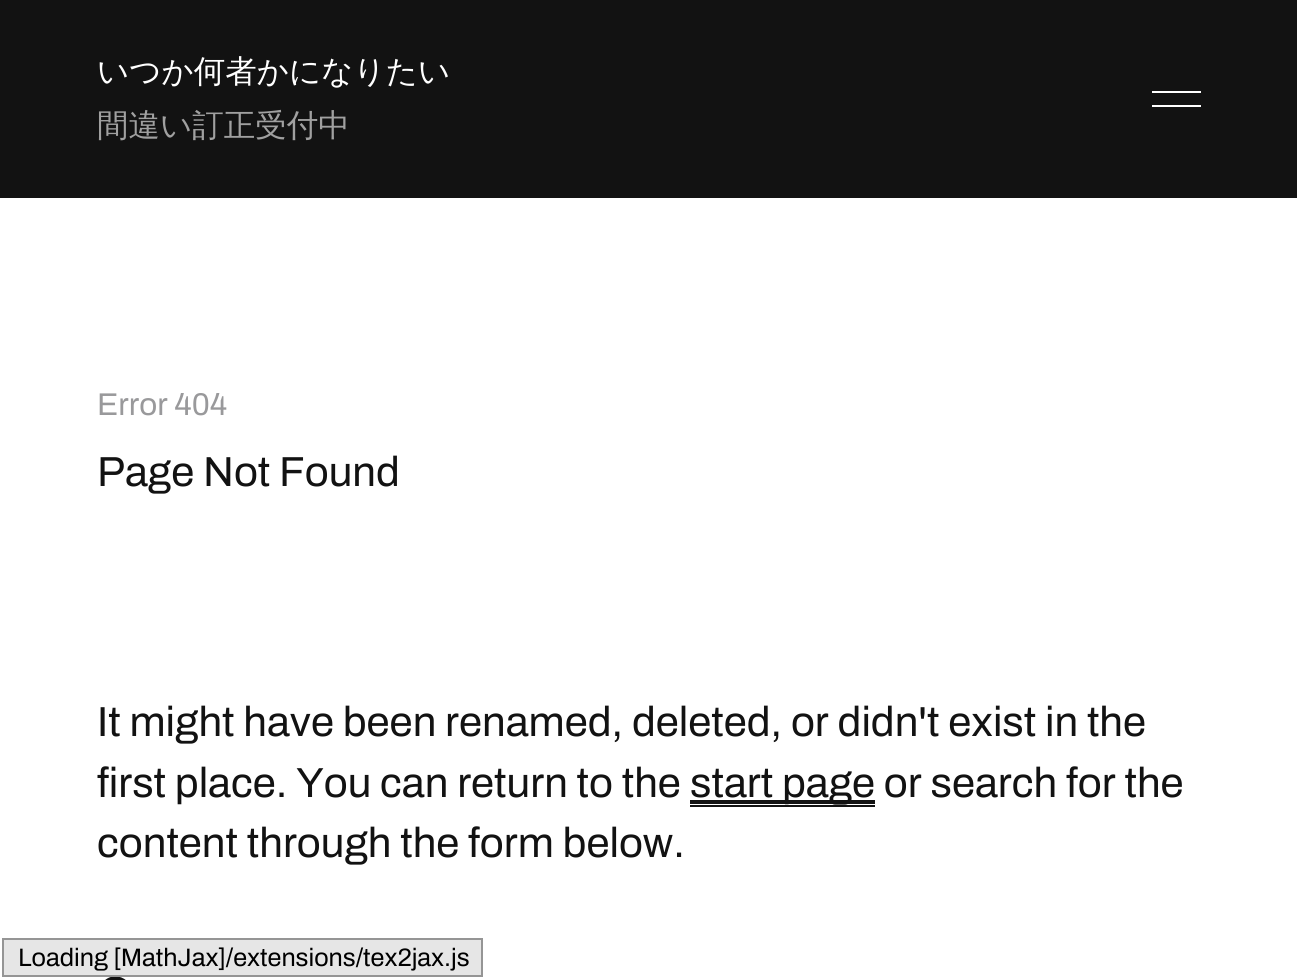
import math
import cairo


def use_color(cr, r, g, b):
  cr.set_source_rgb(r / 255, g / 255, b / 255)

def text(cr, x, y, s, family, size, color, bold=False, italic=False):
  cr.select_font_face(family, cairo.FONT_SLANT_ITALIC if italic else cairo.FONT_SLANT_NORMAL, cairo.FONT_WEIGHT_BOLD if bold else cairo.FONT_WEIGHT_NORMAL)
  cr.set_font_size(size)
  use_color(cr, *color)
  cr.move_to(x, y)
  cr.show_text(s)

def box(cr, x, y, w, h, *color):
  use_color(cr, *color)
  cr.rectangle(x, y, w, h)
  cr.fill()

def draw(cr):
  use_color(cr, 255, 255, 255)
  cr.paint()
  box(cr, 0, 0, 1297, 198, 18, 18, 18)
  box(cr, 1152, 91, 49, 2, 255, 255, 255)
  box(cr, 1152, 105, 49, 2, 255, 255, 255)
  box(cr, 690, 805, 185, 2, 18, 18, 18)
  box(cr, 690, 800, 185, 4, 18, 18, 18)
  cr.set_fill_rule(cairo.FILL_RULE_EVEN_ODD)
  cr.new_path()
  cr.move_to(130, 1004)
  cr.line_to(143, 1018)
  cr.line_to(141, 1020)
  cr.line_to(128, 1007)
  cr.curve_to(111, 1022, 87, 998, 103, 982)
  cr.curve_to(118, 966, 142, 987, 130, 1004)
  cr.close_path()
  cr.move_to(116, 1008)
  cr.curve_to(134, 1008, 134, 980, 116, 980)
  cr.curve_to(97, 980, 97, 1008, 116, 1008)
  cr.close_path()
  cr.fill()
  use_color(cr, 230, 230, 230)
  cr.rectangle(3, 939, 479, 37)
  cr.fill_preserve()
  use_color(cr, 149, 149, 149)
  cr.stroke()
  text(cr, 97, 82, "いつか何者かになりたい", "WenQuanYi Zen Hei Medium", 31.5, (255, 255, 255))
  text(cr, 97, 136, "間違い訂正受付中", "WenQuanYi Zen Hei Medium", 31.5, (160, 160, 160))
  text(cr, 97, 415, "Error 404", "Archivo", 31.5, (153, 153, 155))
  text(cr, 97, 486, "Page Not Found", "Archivo", 42, (18, 18, 18))
  text(cr, 97, 736, "It might have been renamed, deleted, or didn't exist in the", "Archivo", 42, (18, 18, 18))
  text(cr, 97, 797, "first place. You can return to the", "Archivo", 42, (18, 18, 18))
  text(cr, 690, 797, "start page or search for the", "Archivo", 42, (18, 18, 18))
  text(cr, 97, 857, "content through the form below.", "Archivo", 42, (18, 18, 18))
  text(cr, 18, 966, "Loading [MathJax]/extensions/tex2jax.js", "Archivo", 25.25, (0, 0, 0))


surface = cairo.ImageSurface(cairo.FORMAT_RGB24, 1297, 980)
cr = cairo.Context(surface)
options = cairo.FontOptions()
options.set_hint_metrics(cairo.HINT_METRICS_OFF)
options.set_hint_style(cairo.HINT_STYLE_NONE)
cr.set_font_options(options)
cr.set_miter_limit(4)
draw(cr)
surface.write_to_png("out.png")
